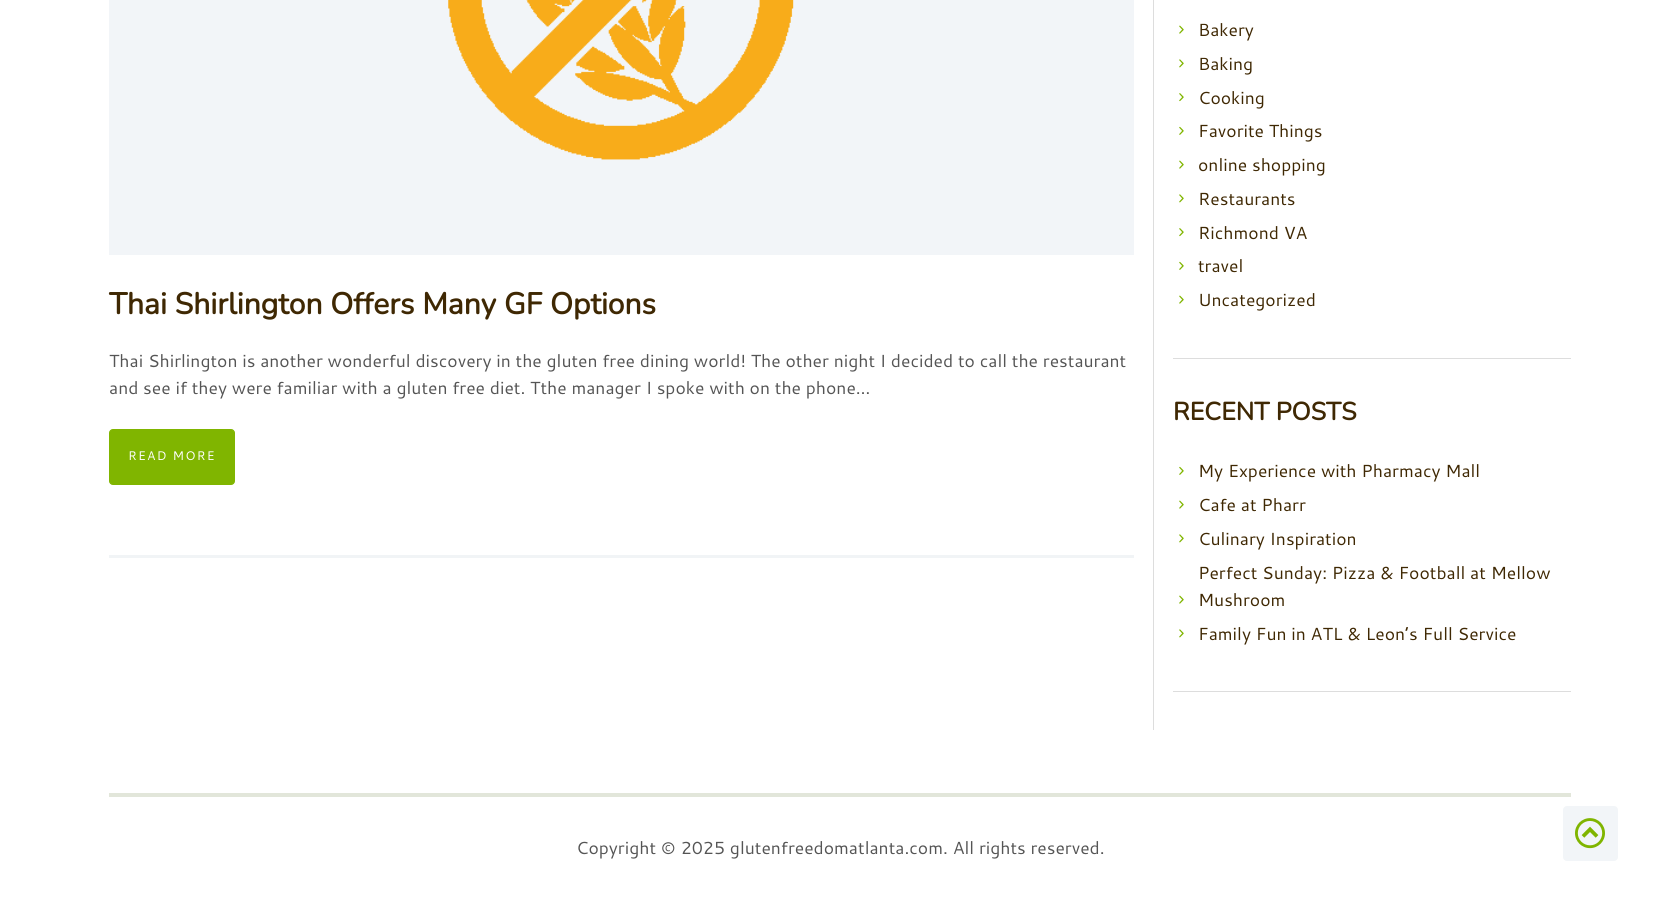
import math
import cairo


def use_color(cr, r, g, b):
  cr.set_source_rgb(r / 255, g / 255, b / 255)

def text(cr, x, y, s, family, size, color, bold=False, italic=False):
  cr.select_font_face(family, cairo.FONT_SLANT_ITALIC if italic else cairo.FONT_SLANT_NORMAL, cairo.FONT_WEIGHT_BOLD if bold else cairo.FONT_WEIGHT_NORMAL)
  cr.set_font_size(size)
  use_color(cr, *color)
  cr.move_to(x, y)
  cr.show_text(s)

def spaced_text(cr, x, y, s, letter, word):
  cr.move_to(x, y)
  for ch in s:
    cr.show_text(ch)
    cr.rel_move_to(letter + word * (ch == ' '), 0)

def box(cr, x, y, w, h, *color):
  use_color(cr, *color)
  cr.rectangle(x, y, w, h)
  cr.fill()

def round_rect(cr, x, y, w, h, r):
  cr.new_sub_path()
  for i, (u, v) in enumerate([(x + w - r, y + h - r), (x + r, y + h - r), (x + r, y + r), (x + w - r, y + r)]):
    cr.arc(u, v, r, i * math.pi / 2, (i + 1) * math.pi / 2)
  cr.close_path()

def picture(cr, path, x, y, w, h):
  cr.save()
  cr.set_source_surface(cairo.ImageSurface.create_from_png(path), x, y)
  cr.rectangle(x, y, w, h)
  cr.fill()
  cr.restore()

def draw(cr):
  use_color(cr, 255, 255, 255)
  cr.paint()
  box(cr, 109, 555, 1025, 3, 241, 244, 246)
  box(cr, 109, 0, 1025, 255, 242, 245, 248)
  picture(cr, "img_01.png", 448, 0, 346, 160)
  use_color(cr, 128, 181, 0)
  round_rect(cr, 109.5, 429.5, 125, 55, 3.5)
  cr.fill_preserve()
  cr.set_line_width(1)
  cr.stroke()
  box(cr, 1153, 0, 1, 730, 221, 221, 221)
  box(cr, 1173, 358, 398, 1, 221, 221, 221)
  picture(cr, "img_02.png", 1179, 25, 5, 9)
  picture(cr, "img_03.png", 1179, 59, 5, 9)
  picture(cr, "img_04.png", 1179, 93, 5, 9)
  picture(cr, "img_05.png", 1179, 126, 5, 9)
  picture(cr, "img_02.png", 1179, 160, 5, 9)
  picture(cr, "img_03.png", 1179, 194, 5, 9)
  picture(cr, "img_04.png", 1179, 228, 5, 9)
  picture(cr, "img_05.png", 1179, 261, 5, 9)
  picture(cr, "img_02.png", 1179, 295, 5, 9)
  box(cr, 1173, 691, 398, 1, 221, 221, 221)
  picture(cr, "img_05.png", 1179, 466, 5, 9)
  picture(cr, "img_02.png", 1179, 500, 5, 9)
  picture(cr, "img_03.png", 1179, 534, 5, 9)
  picture(cr, "img_02.png", 1179, 595, 5, 9)
  picture(cr, "img_03.png", 1179, 629, 5, 9)
  box(cr, 109, 793, 1462, 4, 226, 230, 218)
  use_color(cr, 242, 245, 248)
  round_rect(cr, 1563, 806, 55, 55, 4)
  cr.fill()
  picture(cr, "img_06.png", 1575, 818, 30, 31)
  text(cr, 109, 314, "Thai Shirlington Offers Many GF Options", "Nunito", 30, (63, 40, 3), bold=True)
  text(cr, 109, 367, "Thai Shirlington is another wonderful discovery in the gluten free dining world! The other night I decided to call the restaurant", "Cantarell", 17.5, (85, 85, 85))
  text(cr, 109, 394, "and see if they were familiar with a gluten free diet. Tthe manager I spoke with on the phone…", "Cantarell", 17.5, (85, 85, 85))
  cr.set_font_size(12.5)
  use_color(cr, 255, 255, 255)
  spaced_text(cr, 128, 460, "READ MORE", 1.25, 0)
  text(cr, 1198, 36, "Bakery", "Cantarell", 17.5, (63, 40, 3))
  text(cr, 1198, 70, "Baking", "Cantarell", 17.5, (63, 40, 3))
  text(cr, 1198, 104, "Cooking", "Cantarell", 17.5, (63, 40, 3))
  text(cr, 1198, 137, "Favorite Things", "Cantarell", 17.5, (63, 40, 3))
  text(cr, 1198, 171, "online shopping", "Cantarell", 17.5, (63, 40, 3))
  text(cr, 1198, 205, "Restaurants", "Cantarell", 17.5, (63, 40, 3))
  text(cr, 1198, 239, "Richmond VA", "Cantarell", 17.5, (63, 40, 3))
  text(cr, 1198, 272, "travel", "Cantarell", 17.5, (63, 40, 3))
  text(cr, 1198, 306, "Uncategorized", "Cantarell", 17.5, (63, 40, 3))
  text(cr, 1173, 420, "RECENT POSTS", "Nunito", 25, (63, 40, 3), bold=True)
  text(cr, 1198, 477, "My Experience with Pharmacy Mall", "Cantarell", 17.5, (63, 40, 3))
  text(cr, 1198, 511, "Cafe at Pharr", "Cantarell", 17.5, (63, 40, 3))
  text(cr, 1198, 545, "Culinary Inspiration", "Cantarell", 17.5, (63, 40, 3))
  text(cr, 1198, 579, "Perfect Sunday: Pizza & Football at Mellow", "Cantarell", 17.5, (63, 40, 3))
  text(cr, 1198, 606, "Mushroom", "Cantarell", 17.5, (63, 40, 3))
  text(cr, 1198, 640, "Family Fun in ATL & Leon’s Full Service", "Cantarell", 17.5, (63, 40, 3))
  text(cr, 576, 854, "Copyright © 2025 glutenfreedomatlanta.com. All rights reserved.", "Cantarell", 17.5, (85, 85, 85))


surface = cairo.ImageSurface(cairo.FORMAT_RGB24, 1680, 898)
cr = cairo.Context(surface)
options = cairo.FontOptions()
options.set_hint_metrics(cairo.HINT_METRICS_OFF)
options.set_hint_style(cairo.HINT_STYLE_NONE)
cr.set_font_options(options)
cr.set_miter_limit(4)
draw(cr)
surface.write_to_png("out.png")
